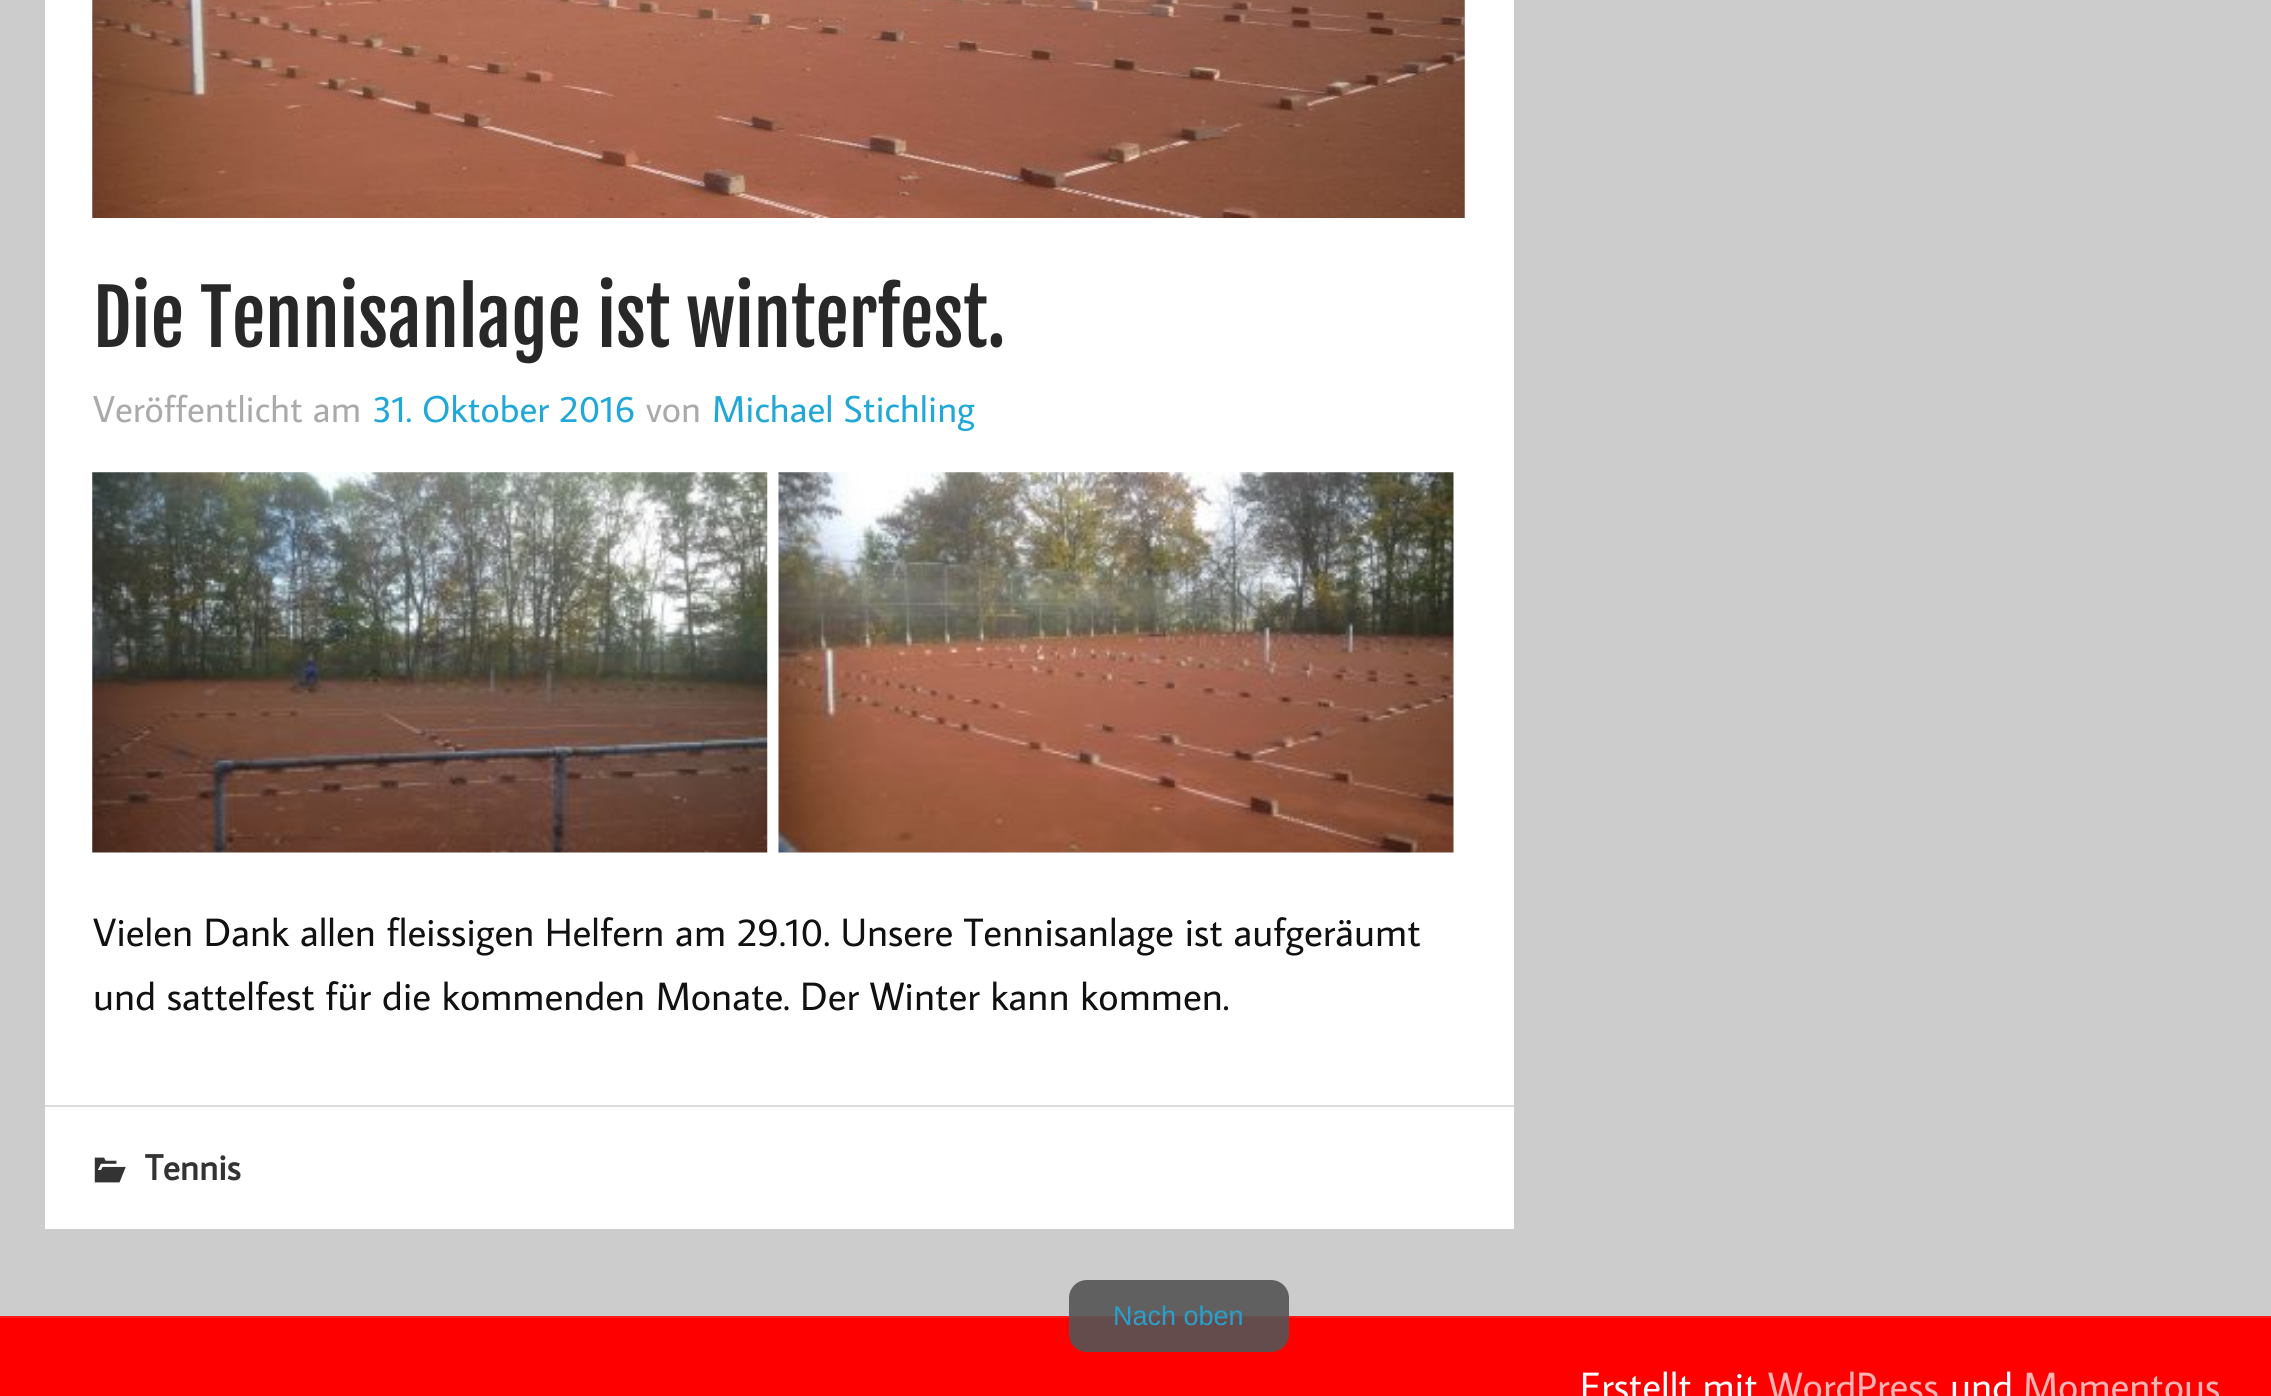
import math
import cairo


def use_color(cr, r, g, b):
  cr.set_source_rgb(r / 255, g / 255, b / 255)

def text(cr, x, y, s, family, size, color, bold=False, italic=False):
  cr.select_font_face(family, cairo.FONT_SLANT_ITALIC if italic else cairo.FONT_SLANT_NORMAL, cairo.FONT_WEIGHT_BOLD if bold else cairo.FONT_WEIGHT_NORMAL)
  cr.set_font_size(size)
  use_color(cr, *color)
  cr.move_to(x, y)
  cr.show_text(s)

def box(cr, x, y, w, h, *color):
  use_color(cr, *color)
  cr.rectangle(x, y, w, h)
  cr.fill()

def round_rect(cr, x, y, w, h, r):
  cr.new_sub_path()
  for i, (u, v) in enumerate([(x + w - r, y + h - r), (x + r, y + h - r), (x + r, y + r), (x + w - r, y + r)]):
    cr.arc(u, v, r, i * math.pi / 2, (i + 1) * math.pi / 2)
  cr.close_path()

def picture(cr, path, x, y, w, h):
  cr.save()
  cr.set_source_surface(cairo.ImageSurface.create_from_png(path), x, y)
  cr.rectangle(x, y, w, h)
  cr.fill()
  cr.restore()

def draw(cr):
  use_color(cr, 204, 204, 204)
  cr.paint()
  box(cr, 45, 0, 1469, 1229, 255, 255, 255)
  picture(cr, "img_01.png", 92, 0, 1373, 218)
  picture(cr, "img_02.png", 92, 472, 676, 381)
  picture(cr, "img_03.png", 778, 472, 676, 381)
  box(cr, 45, 1105, 1469, 2, 221, 221, 221)
  picture(cr, "img_04.png", 94, 1157, 32, 26)
  box(cr, 0, 1318, 2271, 78, 255, 0, 0)
  box(cr, 0, 1316, 2271, 2, 255, 26, 26)
  cr.set_source_rgba(0.333, 0.333, 0.333, 0.9)
  round_rect(cr, 1069, 1280, 220, 72, 18)
  cr.fill()
  text(cr, 93, 347, "Die Tennisanlage ist winterfest.", "Fjalla One", 75.25, (40, 40, 40))
  text(cr, 93, 422, "Veröffentlicht am", "Average Sans", 37.5, (170, 170, 170))
  text(cr, 372, 422, "31. Oktober 2016", "Average Sans", 37.5, (34, 168, 216))
  text(cr, 646, 422, "von", "Average Sans", 37.5, (170, 170, 170))
  text(cr, 712, 422, "Michael Stichling", "Average Sans", 37.5, (34, 168, 216))
  text(cr, 93, 946, "Vielen Dank allen fleissigen Helfern am 29.10. Unsere Tennisanlage ist aufgeräumt", "Average Sans", 39.6, (17, 17, 17))
  text(cr, 93, 1010, "und sattelfest für die kommenden Monate. Der Winter kann kommen.", "Average Sans", 39.6, (17, 17, 17))
  text(cr, 145, 1180, "Tennis", "Average Sans", 36, (51, 51, 51), bold=True)
  text(cr, 1580, 1400, "Erstellt mit", "Average Sans", 39.6, (255, 255, 255))
  text(cr, 1768, 1400, "WordPress", "Average Sans", 39.6, (255, 179, 179))
  text(cr, 1950, 1400, "und", "Average Sans", 39.6, (255, 255, 255))
  text(cr, 2023, 1400, "Momentous", "Average Sans", 39.6, (255, 179, 179))
  text(cr, 1113, 1325, "Nach oben", "Liberation Sans", 27, (41, 160, 203))


surface = cairo.ImageSurface(cairo.FORMAT_RGB24, 2271, 1396)
cr = cairo.Context(surface)
options = cairo.FontOptions()
options.set_hint_metrics(cairo.HINT_METRICS_OFF)
options.set_hint_style(cairo.HINT_STYLE_NONE)
cr.set_font_options(options)
cr.set_miter_limit(4)
draw(cr)
surface.write_to_png("out.png")
